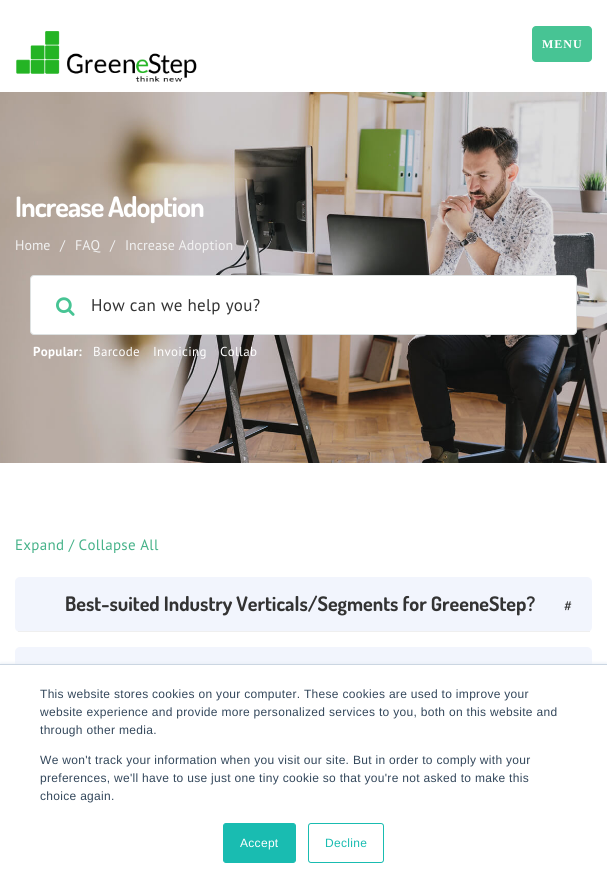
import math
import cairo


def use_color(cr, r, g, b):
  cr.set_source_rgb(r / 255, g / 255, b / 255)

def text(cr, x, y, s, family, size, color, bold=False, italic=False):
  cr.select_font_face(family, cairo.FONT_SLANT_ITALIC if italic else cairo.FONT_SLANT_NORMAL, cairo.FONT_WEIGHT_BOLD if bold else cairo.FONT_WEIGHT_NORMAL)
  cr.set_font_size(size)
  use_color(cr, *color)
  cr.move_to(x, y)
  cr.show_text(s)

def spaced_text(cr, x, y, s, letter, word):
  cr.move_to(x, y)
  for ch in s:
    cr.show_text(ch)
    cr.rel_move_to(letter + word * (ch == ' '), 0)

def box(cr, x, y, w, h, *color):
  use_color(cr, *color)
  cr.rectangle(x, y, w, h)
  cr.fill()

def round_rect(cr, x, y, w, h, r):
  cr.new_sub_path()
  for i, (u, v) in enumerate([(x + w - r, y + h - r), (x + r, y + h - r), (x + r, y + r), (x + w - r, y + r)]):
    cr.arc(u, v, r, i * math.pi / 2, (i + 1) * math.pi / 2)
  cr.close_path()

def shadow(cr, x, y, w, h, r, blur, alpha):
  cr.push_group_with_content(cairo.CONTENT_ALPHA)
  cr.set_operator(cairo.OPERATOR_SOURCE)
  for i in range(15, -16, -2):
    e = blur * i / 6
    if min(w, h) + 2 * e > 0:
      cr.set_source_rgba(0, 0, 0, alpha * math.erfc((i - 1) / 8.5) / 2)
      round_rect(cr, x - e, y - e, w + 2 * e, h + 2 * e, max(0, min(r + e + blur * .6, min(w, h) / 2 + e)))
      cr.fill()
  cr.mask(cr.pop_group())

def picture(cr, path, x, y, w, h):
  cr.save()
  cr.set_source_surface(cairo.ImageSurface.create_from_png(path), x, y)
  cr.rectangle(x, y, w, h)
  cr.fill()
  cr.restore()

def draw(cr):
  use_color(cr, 255, 255, 255)
  cr.paint()
  picture(cr, "img_01.png", 16, 31, 181, 51)
  use_color(cr, 71, 196, 148)
  round_rect(cr, 532, 26, 60, 36, 4)
  cr.fill()
  picture(cr, "img_02.png", 0, 92, 607, 371)
  use_color(cr, 255, 255, 255)
  round_rect(cr, 30.5, 275.5, 546, 59, 3.5)
  cr.fill_preserve()
  use_color(cr, 221, 225, 225)
  cr.set_line_width(1)
  cr.stroke()
  picture(cr, "img_03.png", 56, 297, 19, 19)
  use_color(cr, 242, 245, 253)
  round_rect(cr, 15, 577, 577, 55, 5)
  cr.fill()
  box(cr, 18, 631, 572, 1, 239, 239, 239)
  use_color(cr, 242, 245, 253)
  round_rect(cr, 15, 647, 577, 55, 5)
  cr.fill()
  use_color(cr, 234, 240, 246)
  shadow(cr, 0, 663, 607, 225, 0, 1.5, 1)
  box(cr, 0, 665, 607, 224, 255, 255, 255)
  box(cr, 0, 664, 607, 1, 203, 214, 226)
  use_color(cr, 25, 188, 177)
  round_rect(cr, 223.5, 823.5, 72, 39, 2.5)
  cr.fill_preserve()
  cr.stroke()
  round_rect(cr, 308.5, 823.5, 75, 39, 2.5)
  cr.stroke()
  cr.select_font_face("Liberation Serif", cairo.FONT_SLANT_NORMAL, cairo.FONT_WEIGHT_BOLD)
  cr.set_font_size(12)
  use_color(cr, 255, 255, 255)
  spaced_text(cr, 542, 48, "MENU", 1, 0)
  cr.select_font_face("Dosis", cairo.FONT_SLANT_NORMAL, cairo.FONT_WEIGHT_BOLD)
  cr.set_font_size(28)
  spaced_text(cr, 15, 217, "Increase Adoption", -1, 0)
  text(cr, 15, 250, "Home", "PT Sans", 14, (241, 241, 241))
  text(cr, 60, 250, "/", "PT Sans", 14, (241, 241, 241))
  text(cr, 75, 250, "FAQ", "PT Sans", 14, (241, 241, 241))
  text(cr, 110, 250, "/", "PT Sans", 14, (241, 241, 241))
  text(cr, 125, 250, "Increase Adoption", "PT Sans", 14, (241, 241, 241))
  text(cr, 243, 250, "/", "PT Sans", 14, (241, 241, 241))
  cr.set_font_size(17)
  use_color(cr, 51, 51, 51)
  spaced_text(cr, 91, 311, "How can we help you?", 0.3, 0)
  cr.select_font_face("PT Sans", cairo.FONT_SLANT_NORMAL, cairo.FONT_WEIGHT_BOLD)
  cr.set_font_size(13)
  use_color(cr, 255, 255, 255)
  spaced_text(cr, 33, 356, "Popular:", 0.3, 0)
  cr.select_font_face("PT Sans")
  spaced_text(cr, 93, 356, "Barcode", 0.3, 0)
  spaced_text(cr, 153, 356, "Invoicing", 0.3, 0)
  spaced_text(cr, 220, 356, "Collab", 0.3, 0)
  cr.set_font_size(15)
  use_color(cr, 70, 178, 137)
  spaced_text(cr, 15, 550, "Expand / Collapse All", 0.3, 0)
  text(cr, 65, 611, "Best-suited Industry Verticals/Segments for GreeneStep?", "Dosis", 20, (51, 51, 51), bold=True)
  cr.select_font_face("PT Sans")
  cr.set_font_size(15)
  spaced_text(cr, 564, 611, "#", 0.3, 0)
  cr.select_font_face("Liberation Sans")
  cr.set_font_size(12)
  use_color(cr, 51, 71, 91)
  spaced_text(cr, 40, 698, "This website stores cookies on your computer. These cookies are used to improve your", 0.3, 0)
  spaced_text(cr, 40, 716, "website experience and provide more personalized services to you, both on this website and", 0.3, 0)
  spaced_text(cr, 40, 734, "through other media.", 0.3, 0)
  spaced_text(cr, 40, 764, "We won't track your information when you visit our site. But in order to comply with your", 0.3, 0)
  spaced_text(cr, 40, 782, "preferences, we'll have to use just one tiny cookie so that you're not asked to make this", 0.3, 0)
  spaced_text(cr, 40, 800, "choice again.", 0.3, 0)
  use_color(cr, 255, 255, 255)
  spaced_text(cr, 240, 847, "Accept", 0.3, 0)
  use_color(cr, 25, 188, 177)
  spaced_text(cr, 325, 847, "Decline", 0.3, 0)


surface = cairo.ImageSurface(cairo.FORMAT_RGB24, 607, 889)
cr = cairo.Context(surface)
options = cairo.FontOptions()
options.set_hint_metrics(cairo.HINT_METRICS_OFF)
options.set_hint_style(cairo.HINT_STYLE_NONE)
cr.set_font_options(options)
cr.set_miter_limit(4)
draw(cr)
surface.write_to_png("out.png")
